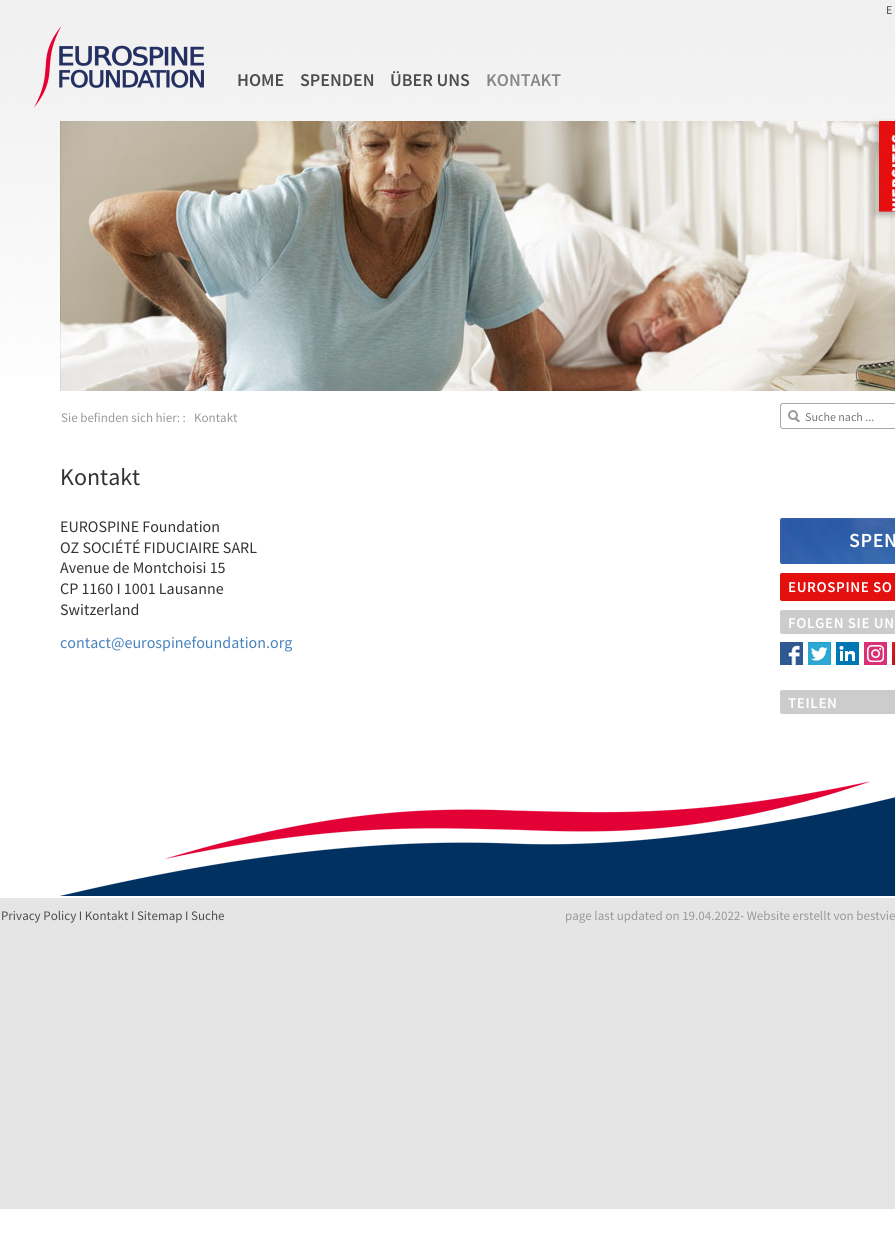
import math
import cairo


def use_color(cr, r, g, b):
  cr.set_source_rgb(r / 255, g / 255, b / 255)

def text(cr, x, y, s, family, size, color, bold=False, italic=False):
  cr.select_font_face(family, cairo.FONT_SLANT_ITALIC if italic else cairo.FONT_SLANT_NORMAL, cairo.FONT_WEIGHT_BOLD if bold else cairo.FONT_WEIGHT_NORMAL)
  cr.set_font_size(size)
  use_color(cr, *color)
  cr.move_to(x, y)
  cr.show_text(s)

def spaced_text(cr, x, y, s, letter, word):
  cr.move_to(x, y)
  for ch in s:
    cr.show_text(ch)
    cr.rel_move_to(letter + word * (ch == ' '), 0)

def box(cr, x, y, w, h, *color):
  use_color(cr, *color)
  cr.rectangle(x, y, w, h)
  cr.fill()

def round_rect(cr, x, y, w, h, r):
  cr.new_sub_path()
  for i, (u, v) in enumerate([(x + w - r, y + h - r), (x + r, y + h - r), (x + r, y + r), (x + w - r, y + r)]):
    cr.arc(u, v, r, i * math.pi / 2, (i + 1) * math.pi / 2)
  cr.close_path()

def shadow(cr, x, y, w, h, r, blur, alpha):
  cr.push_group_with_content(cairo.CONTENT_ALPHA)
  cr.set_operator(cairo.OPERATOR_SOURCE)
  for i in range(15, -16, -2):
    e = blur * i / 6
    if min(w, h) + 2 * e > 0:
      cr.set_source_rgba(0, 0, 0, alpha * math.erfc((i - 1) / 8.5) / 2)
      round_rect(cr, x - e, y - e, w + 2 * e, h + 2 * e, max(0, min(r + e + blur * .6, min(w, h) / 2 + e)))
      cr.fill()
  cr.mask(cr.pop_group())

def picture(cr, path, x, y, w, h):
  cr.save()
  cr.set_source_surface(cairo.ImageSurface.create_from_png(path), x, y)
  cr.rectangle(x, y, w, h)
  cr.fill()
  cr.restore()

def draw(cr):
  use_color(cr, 255, 255, 255)
  cr.paint()
  picture(cr, "img_01.png", 0, 0, 895, 375)
  picture(cr, "img_02.png", 34, 26, 170, 82)
  picture(cr, "img_03.png", 60, 121, 835, 270)
  picture(cr, "img_04.png", 780, 403, 115, 26)
  picture(cr, "img_05.png", 780, 518, 115, 46)
  use_color(cr, 228, 15, 15)
  round_rect(cr, 780, 573, 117, 28, 2)
  cr.fill()
  use_color(cr, 204, 204, 204)
  round_rect(cr, 780, 610, 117, 24, 2)
  cr.fill()
  picture(cr, "img_06.png", 780, 642, 23, 23)
  picture(cr, "img_07.png", 808, 642, 23, 23)
  picture(cr, "img_08.png", 836, 642, 23, 23)
  picture(cr, "img_09.png", 864, 642, 23, 23)
  picture(cr, "img_10.png", 892, 642, 3, 23)
  round_rect(cr, 780, 690, 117, 24, 2)
  cr.fill()
  picture(cr, "img_11.png", 60, 781, 835, 115)
  use_color(cr, 0, 0, 0)
  shadow(cr, 873, 124, 19, 91, 0, 3, 0.1)
  shadow(cr, 876, 124, 19, 91, 0, 3, 0.1)
  shadow(cr, 879, 124, 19, 91, 0, 3, 0.1)
  picture(cr, "img_12.png", 879, 121, 16, 91)
  box(cr, 0, 898, 895, 311, 229, 229, 229)
  text(cr, 886, 14, "E", "Source Sans Pro", 12, (77, 77, 77))
  text(cr, 237, 86, "HOME", "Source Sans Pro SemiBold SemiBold", 18, (77, 77, 77))
  text(cr, 300, 86, "SPENDEN", "Source Sans Pro SemiBold SemiBold", 18, (77, 77, 77))
  text(cr, 390, 86, "ÜBER UNS", "Source Sans Pro SemiBold SemiBold", 18, (77, 77, 77))
  text(cr, 486, 86, "KONTAKT", "Source Sans Pro SemiBold SemiBold", 18, (136, 136, 136))
  text(cr, 61, 422, "Sie befinden sich hier: :", "Source Sans Pro", 13, (153, 153, 153))
  text(cr, 194, 422, "Kontakt", "Source Sans Pro", 13, (153, 153, 153))
  text(cr, 805, 421, "Suche nach ...", "Source Sans Pro", 12, (117, 117, 117))
  text(cr, 60, 485, "Kontakt", "Source Sans Pro", 24, (51, 51, 51))
  text(cr, 60, 532, "EUROSPINE Foundation", "Source Sans Pro", 16, (51, 51, 51))
  text(cr, 60, 553, "OZ SOCIÉTÉ FIDUCIAIRE SARL", "Source Sans Pro", 16, (51, 51, 51))
  text(cr, 60, 573, "Avenue de Montchoisi 15", "Source Sans Pro", 16, (51, 51, 51))
  text(cr, 60, 594, "CP 1160 I 1001 Lausanne", "Source Sans Pro", 16, (51, 51, 51))
  text(cr, 60, 615, "Switzerland", "Source Sans Pro", 16, (51, 51, 51))
  text(cr, 60, 648, "contact@eurospinefoundation.org", "Source Sans Pro", 16, (73, 131, 188))
  cr.select_font_face("Source Sans Pro SemiBold SemiBold")
  cr.set_font_size(20)
  use_color(cr, 255, 255, 255)
  spaced_text(cr, 849, 547, "SPEN", 0.6, 0)
  cr.set_font_size(15)
  spaced_text(cr, 788, 592, "EUROSPINE SO", 0.6, 0)
  spaced_text(cr, 788, 628, "FOLGEN SIE UN", 0.6, 0)
  spaced_text(cr, 788, 708, "TEILEN", 0.6, 0)
  text(cr, 1, 920, "Privacy Policy I Kontakt I Sitemap I Suche", "Source Sans Pro", 13, (77, 77, 77))
  text(cr, 565, 920, "page last updated on 19.04.2022", "Source Sans Pro", 13, (153, 153, 153))
  text(cr, 740, 920, "- Website erstellt von bestvie", "Source Sans Pro", 13, (153, 153, 153))


surface = cairo.ImageSurface(cairo.FORMAT_RGB24, 895, 1234)
cr = cairo.Context(surface)
options = cairo.FontOptions()
options.set_hint_metrics(cairo.HINT_METRICS_OFF)
options.set_hint_style(cairo.HINT_STYLE_NONE)
cr.set_font_options(options)
cr.set_miter_limit(4)
draw(cr)
surface.write_to_png("out.png")
